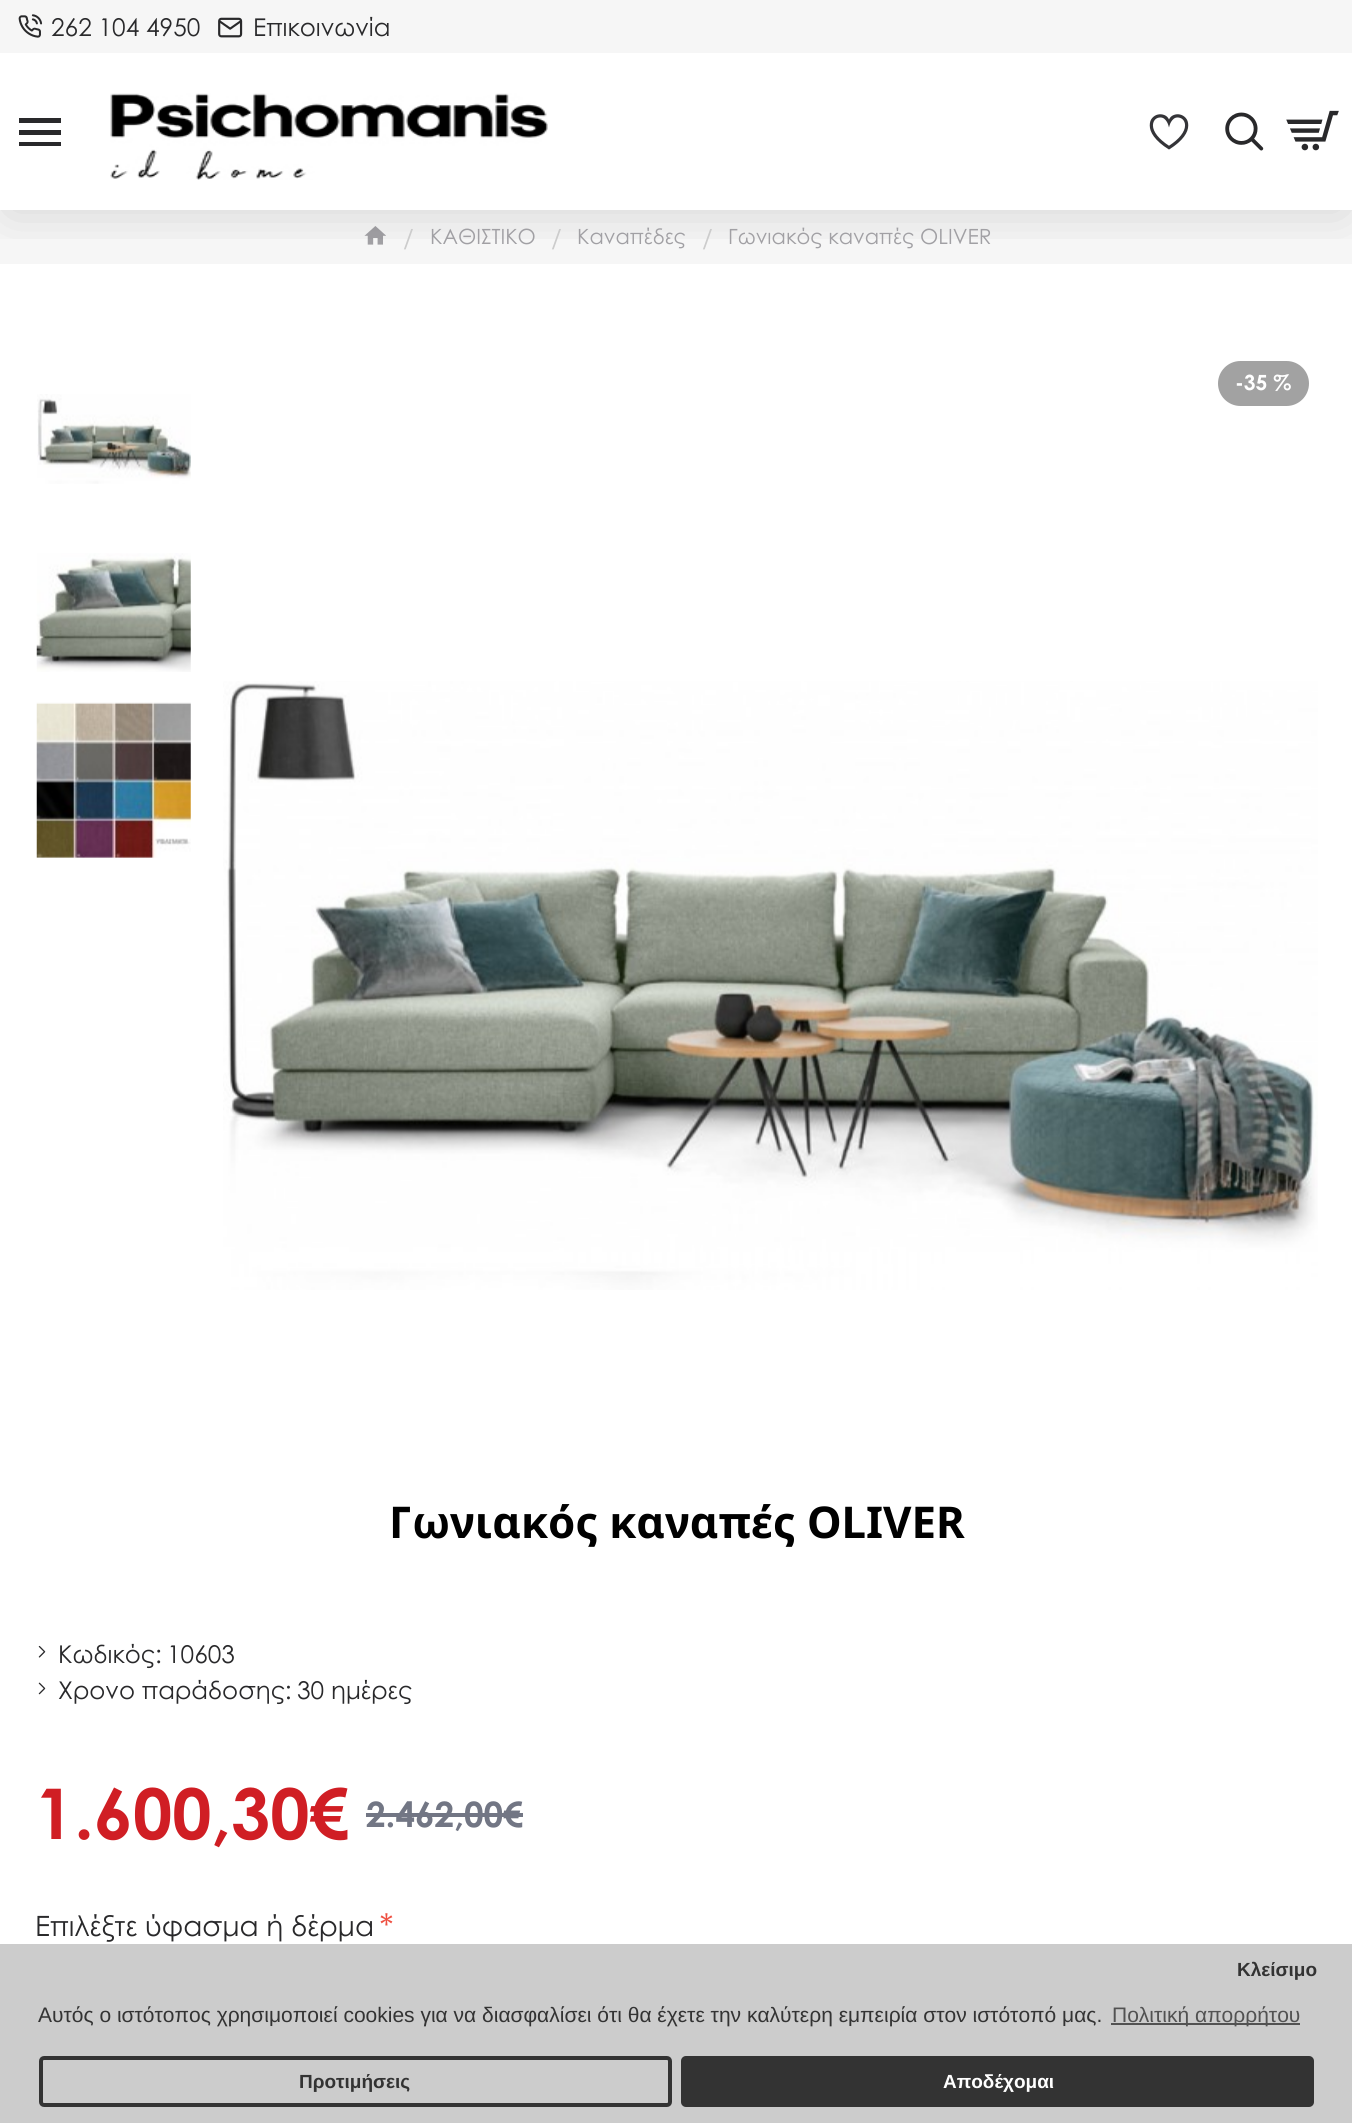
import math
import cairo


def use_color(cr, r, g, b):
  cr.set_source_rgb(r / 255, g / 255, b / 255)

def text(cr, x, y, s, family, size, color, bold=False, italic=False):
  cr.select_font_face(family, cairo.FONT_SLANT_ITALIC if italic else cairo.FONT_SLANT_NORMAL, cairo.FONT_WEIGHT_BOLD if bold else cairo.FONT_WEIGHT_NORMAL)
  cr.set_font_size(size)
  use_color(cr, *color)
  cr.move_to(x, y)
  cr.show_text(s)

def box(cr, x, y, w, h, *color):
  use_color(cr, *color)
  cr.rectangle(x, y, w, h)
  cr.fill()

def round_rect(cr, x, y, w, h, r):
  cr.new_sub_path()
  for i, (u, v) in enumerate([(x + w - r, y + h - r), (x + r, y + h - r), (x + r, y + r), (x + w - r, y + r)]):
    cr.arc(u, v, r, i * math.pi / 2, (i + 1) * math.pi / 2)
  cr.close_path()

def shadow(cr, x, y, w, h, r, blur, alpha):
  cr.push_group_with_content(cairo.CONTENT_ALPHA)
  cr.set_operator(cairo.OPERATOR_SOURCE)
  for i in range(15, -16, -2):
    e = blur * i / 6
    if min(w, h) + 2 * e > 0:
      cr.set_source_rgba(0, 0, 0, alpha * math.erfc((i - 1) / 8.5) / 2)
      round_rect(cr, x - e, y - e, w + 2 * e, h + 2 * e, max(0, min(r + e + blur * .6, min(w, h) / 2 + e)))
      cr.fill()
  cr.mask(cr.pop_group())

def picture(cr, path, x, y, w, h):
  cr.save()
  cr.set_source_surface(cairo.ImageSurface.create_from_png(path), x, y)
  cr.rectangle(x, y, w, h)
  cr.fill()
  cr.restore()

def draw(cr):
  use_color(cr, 255, 255, 255)
  cr.paint()
  box(cr, 0, 210, 1352, 54, 246, 246, 246)
  picture(cr, "img_07.png", 364, 226, 22, 19)
  cr.save()
  cr.rectangle(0, 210, 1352, 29)
  cr.clip()
  use_color(cr, 0, 0, 0)
  shadow(cr, 9, 70, 1335, 140, 0, 26, 0.15)
  cr.restore()
  picture(cr, "img_01.png", 110, 93, 438, 87)
  use_color(cr, 41, 41, 43)
  cr.new_path()
  cr.move_to(19, 118)
  cr.line_to(61, 118)
  cr.line_to(61, 123)
  cr.line_to(19, 123)
  cr.close_path()
  cr.move_to(19, 135)
  cr.line_to(19, 130)
  cr.line_to(61, 130)
  cr.line_to(61, 135)
  cr.close_path()
  cr.move_to(19, 146)
  cr.line_to(19, 142)
  cr.line_to(61, 142)
  cr.line_to(61, 146)
  cr.close_path()
  cr.fill()
  picture(cr, "img_02.png", 1149, 114, 40, 36)
  picture(cr, "img_03.png", 1225, 112, 39, 39)
  picture(cr, "img_04.png", 1286, 110, 53, 41)
  box(cr, 0, 0, 1352, 53, 246, 246, 246)
  picture(cr, "img_05.png", 18, 14, 25, 24)
  picture(cr, "img_06.png", 218, 17, 25, 21)
  use_color(cr, 162, 162, 162)
  round_rect(cr, 1218, 361, 91, 45, 22.5)
  cr.fill()
  picture(cr, "img_08.png", 223, 681, 1095, 609)
  picture(cr, "img_09.png", 37, 394, 154, 90)
  picture(cr, "img_10.png", 36, 553, 155, 119)
  picture(cr, "img_11.png", 36, 702, 155, 156)
  picture(cr, "img_12.png", 38, 1645, 8, 13)
  picture(cr, "img_13.png", 38, 1682, 8, 13)
  box(cr, 366, 1813, 157, 4, 114, 118, 132)
  box(cr, 0, 1944, 1352, 179, 204, 204, 204)
  round_rect(cr, 41, 2058, 629, 47, 3)
  use_color(cr, 51, 51, 51)
  cr.set_line_width(4)
  cr.stroke()
  round_rect(cr, 681, 2056, 633, 51, 5)
  cr.fill()
  box(cr, 1111, 2023, 189, 2, 82, 82, 82)
  text(cr, 51, 36, "262 104 4950", "Century Gothic", 24.5, (41, 41, 43))
  text(cr, 253, 36, "Επικοινωνία", "Century Gothic", 24.5, (41, 41, 43))
  text(cr, 403, 247, "/", "Century Gothic", 24.5, (204, 204, 204))
  text(cr, 430, 244, "ΚΑΘΙΣΤΙΚΟ", "Century Gothic", 21, (161, 160, 164))
  text(cr, 551, 247, "/", "Century Gothic", 24.5, (204, 204, 204))
  text(cr, 577, 244, "Καναπέδες", "Century Gothic", 21, (161, 160, 164))
  text(cr, 702, 247, "/", "Century Gothic", 24.5, (204, 204, 204))
  text(cr, 728, 244, "Γωνιακός καναπές OLIVER", "Century Gothic", 21, (161, 160, 164))
  text(cr, 1235, 390, "-35 %", "Century Gothic", 21, (255, 255, 255), bold=True)
  text(cr, 389, 1538, "Γωνιακός καναπές OLIVER", "Noto Sans", 43.75, (0, 0, 0), bold=True)
  text(cr, 58, 1663, "Κωδικός:", "Century Gothic", 24.5, (41, 41, 43))
  text(cr, 167, 1663, "10603", "Century Gothic", 24.5, (41, 41, 43))
  text(cr, 58, 1699, "Χρονο παράδοσης:", "Century Gothic", 24.5, (41, 41, 43))
  text(cr, 297, 1699, "30 ημέρες", "Century Gothic", 24.5, (41, 41, 43))
  text(cr, 35, 1839, "1.600,30€", "Century Gothic", 70, (208, 30, 36), bold=True)
  text(cr, 366, 1827, "2.462,00€", "Century Gothic", 35, (114, 118, 132), bold=True)
  text(cr, 35, 1936, "Επιλέξτε ύφασμα ή δέρμα", "Century Gothic", 28, (41, 41, 43))
  text(cr, 379, 1939, "*", "Century Gothic", 35, (238, 80, 66))
  text(cr, 1237, 1976, "Κλείσιμο", "Liberation Sans", 19, (51, 51, 51), bold=True)
  text(cr, 299, 2088, "Προτιμήσεις", "Liberation Sans", 19, (51, 51, 51), bold=True)
  text(cr, 943, 2088, "Αποδέχομαι", "Liberation Sans", 19, (255, 255, 255), bold=True)
  text(cr, 38, 2022, "Αυτός ο ιστότοπος χρησιμοποιεί cookies για να διασφαλίσει ότι θα έχετε την καλύτερη εμπειρία στον ιστότοπό μας.", "Liberation Sans", 21, (51, 51, 51))
  text(cr, 1112, 2022, "Πολιτική απορρήτου", "Liberation Sans", 21, (82, 82, 82))


surface = cairo.ImageSurface(cairo.FORMAT_RGB24, 1352, 2123)
cr = cairo.Context(surface)
options = cairo.FontOptions()
options.set_hint_metrics(cairo.HINT_METRICS_OFF)
options.set_hint_style(cairo.HINT_STYLE_NONE)
cr.set_font_options(options)
cr.set_miter_limit(4)
draw(cr)
surface.write_to_png("out.png")
